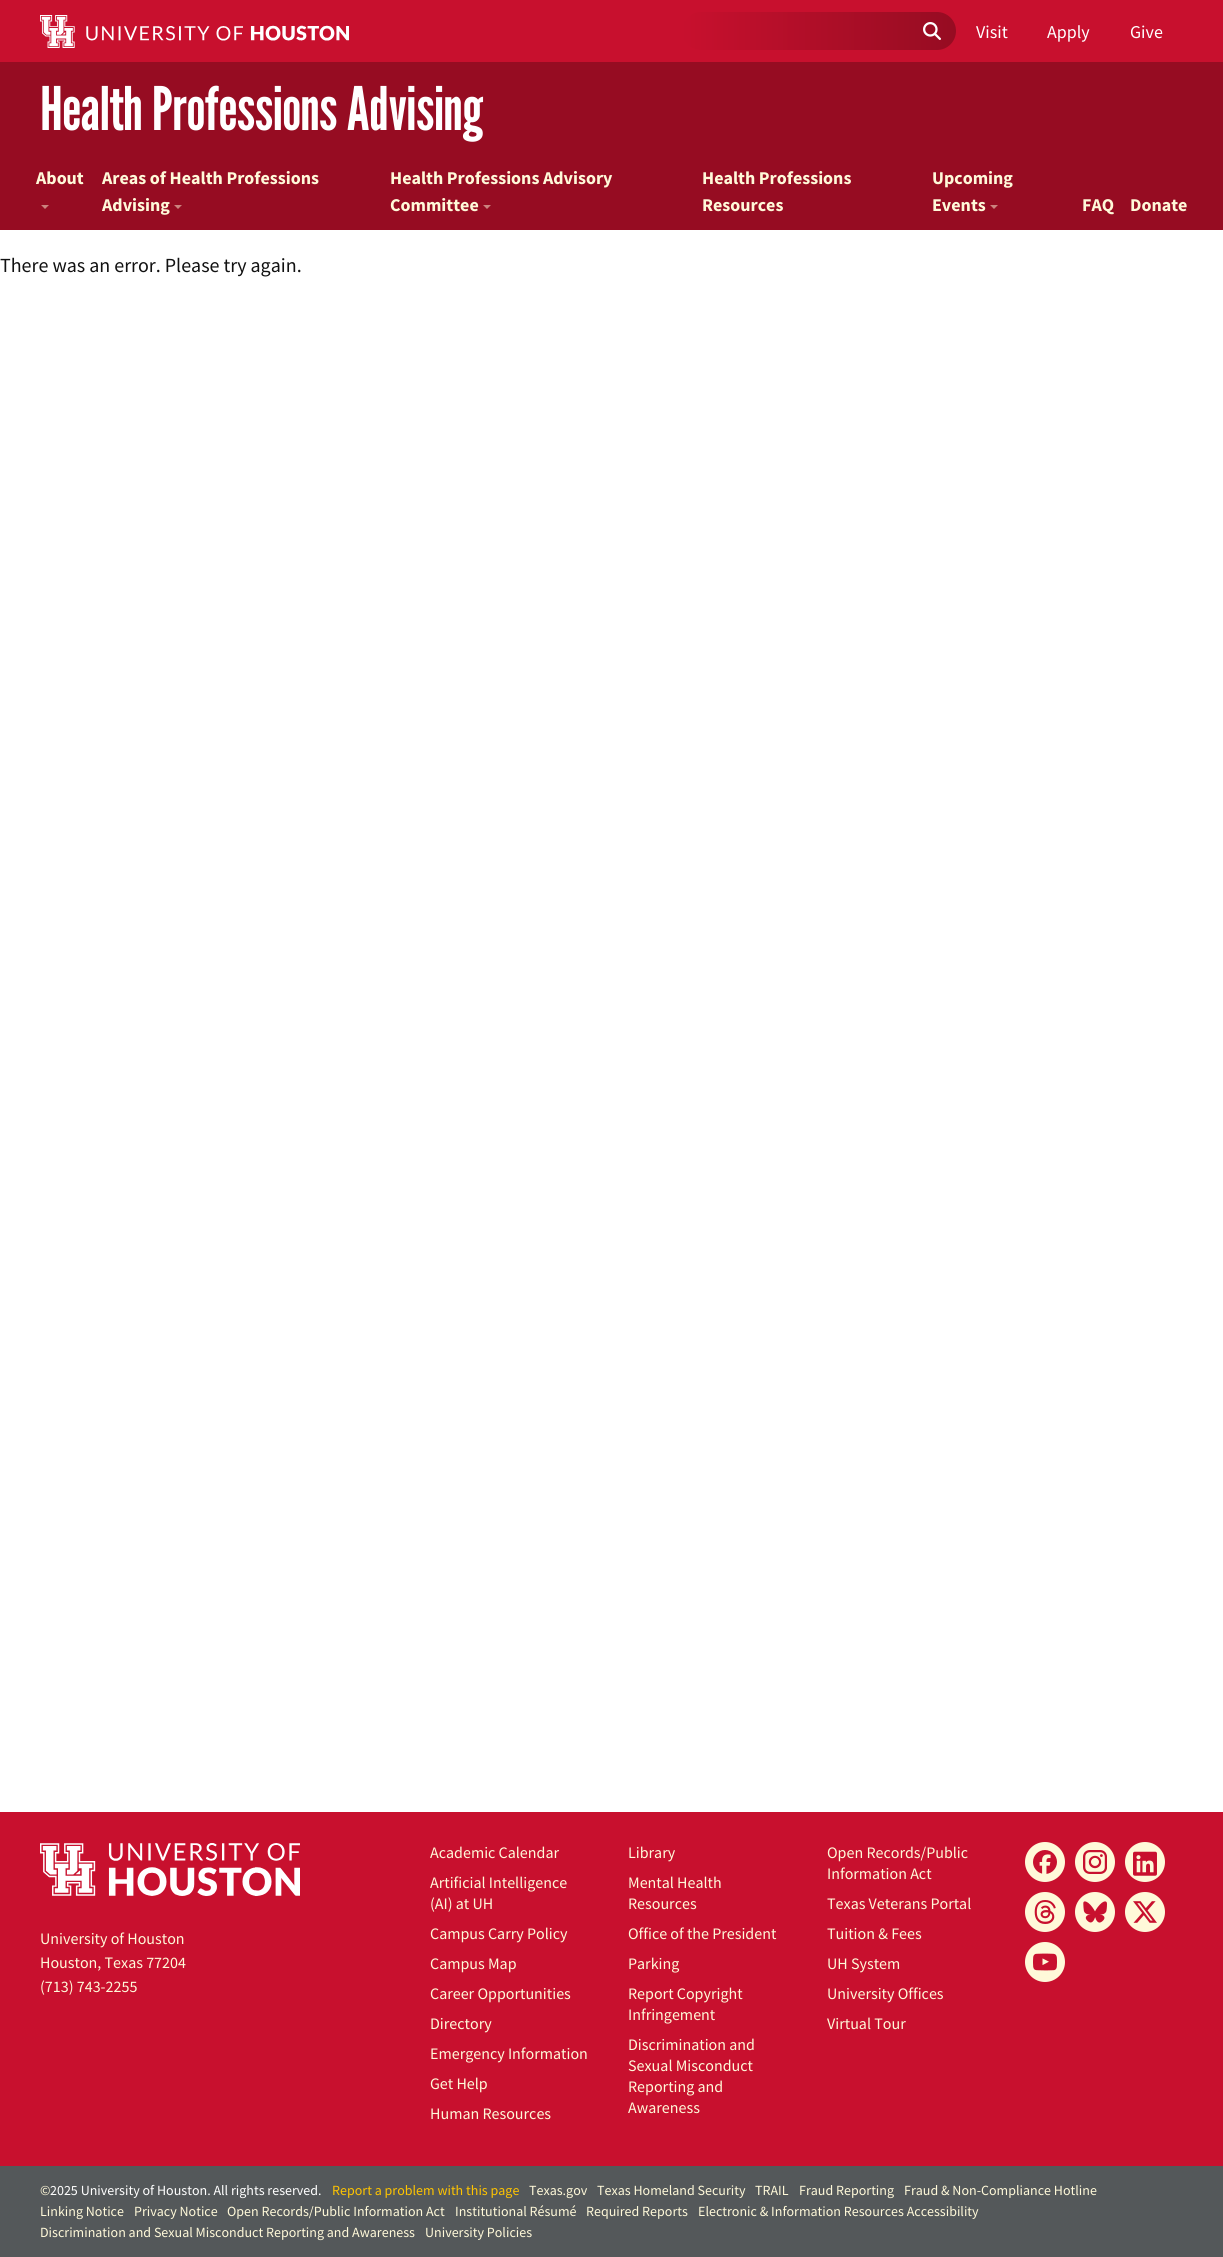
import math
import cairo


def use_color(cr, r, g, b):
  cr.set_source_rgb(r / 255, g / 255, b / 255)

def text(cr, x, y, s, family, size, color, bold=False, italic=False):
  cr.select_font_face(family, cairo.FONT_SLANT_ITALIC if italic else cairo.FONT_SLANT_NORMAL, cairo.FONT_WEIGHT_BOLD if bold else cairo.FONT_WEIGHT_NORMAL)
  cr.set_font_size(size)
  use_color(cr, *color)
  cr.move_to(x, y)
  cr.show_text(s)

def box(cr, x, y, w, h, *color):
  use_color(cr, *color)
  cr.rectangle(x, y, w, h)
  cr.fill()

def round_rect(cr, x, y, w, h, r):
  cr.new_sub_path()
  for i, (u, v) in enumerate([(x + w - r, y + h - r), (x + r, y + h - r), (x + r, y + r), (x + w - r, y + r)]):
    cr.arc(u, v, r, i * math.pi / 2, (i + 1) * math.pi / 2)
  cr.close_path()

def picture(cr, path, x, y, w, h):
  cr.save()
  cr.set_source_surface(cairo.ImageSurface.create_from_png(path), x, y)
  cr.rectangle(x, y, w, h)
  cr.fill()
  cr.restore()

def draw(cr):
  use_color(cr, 255, 255, 255)
  cr.paint()
  box(cr, 0, 0, 1223, 62, 200, 16, 46)
  picture(cr, "img_01.png", 40, 15, 309, 33)
  gradient = cairo.LinearGradient(682, 31, 956, 31)
  gradient.add_color_stop_rgba(0, 0.784, 0.063, 0.18, 1)
  gradient.add_color_stop_rgba(1, 0.588, 0.047, 0.133, 1)
  cr.set_source(gradient)
  round_rect(cr, 682, 12, 274, 38, 19)
  cr.fill()
  picture(cr, "img_02.png", 923, 22, 18, 18)
  box(cr, 0, 62, 1223, 168, 150, 12, 34)
  use_color(cr, 203, 131, 126)
  cr.new_path()
  cr.move_to(41, 205)
  cr.line_to(49, 205)
  cr.line_to(45, 209)
  cr.close_path()
  cr.fill()
  cr.new_path()
  cr.move_to(174, 205)
  cr.line_to(182, 205)
  cr.line_to(178, 209)
  cr.close_path()
  cr.fill()
  cr.new_path()
  cr.move_to(483, 205)
  cr.line_to(491, 205)
  cr.line_to(487, 209)
  cr.close_path()
  cr.fill()
  cr.new_path()
  cr.move_to(990, 205)
  cr.line_to(998, 205)
  cr.line_to(994, 209)
  cr.close_path()
  cr.fill()
  box(cr, 0, 1812, 1223, 354, 200, 16, 46)
  picture(cr, "img_03.png", 40, 1843, 260, 53)
  use_color(cr, 255, 249, 217)
  cr.arc(1045, 1862, 20, 0, 2 * math.pi)
  cr.fill()
  picture(cr, "img_04.png", 1033, 1850, 24, 24)
  cr.arc(1095, 1862, 20, 0, 2 * math.pi)
  cr.fill()
  picture(cr, "img_05.png", 1083, 1850, 24, 24)
  cr.arc(1145, 1862, 20, 0, 2 * math.pi)
  cr.fill()
  picture(cr, "img_06.png", 1133, 1851, 24, 25)
  cr.arc(1045, 1912, 20, 0, 2 * math.pi)
  cr.fill()
  picture(cr, "img_07.png", 1034, 1900, 22, 24)
  cr.arc(1095, 1912, 20, 0, 2 * math.pi)
  cr.fill()
  picture(cr, "img_08.png", 1083, 1901, 24, 22)
  cr.arc(1145, 1912, 20, 0, 2 * math.pi)
  cr.fill()
  picture(cr, "img_09.png", 1133, 1901, 24, 22)
  cr.arc(1045, 1962, 20, 0, 2 * math.pi)
  cr.fill()
  picture(cr, "img_10.png", 1033, 1953, 24, 18)
  box(cr, 0, 2166, 1223, 91, 84, 88, 90)
  text(cr, 976, 38, "Visit", "Source Sans Pro", 18, (255, 255, 255))
  text(cr, 1047, 38, "Apply", "Source Sans Pro", 18, (255, 255, 255))
  text(cr, 1130, 38, "Give", "Source Sans Pro", 18, (255, 255, 255))
  text(cr, 40, 130, "Health Professions Advising", "League Gothic", 60, (255, 255, 255))
  text(cr, 36, 184, "About", "Source Sans Pro", 18, (255, 249, 217), bold=True)
  text(cr, 102, 184, "Areas of Health Professions", "Source Sans Pro", 18, (255, 249, 217), bold=True)
  text(cr, 102, 211, "Advising", "Source Sans Pro", 18, (255, 249, 217), bold=True)
  text(cr, 390, 184, "Health Professions Advisory", "Source Sans Pro", 18, (255, 249, 217), bold=True)
  text(cr, 390, 211, "Committee", "Source Sans Pro", 18, (255, 249, 217), bold=True)
  text(cr, 702, 184, "Health Professions", "Source Sans Pro", 18, (255, 249, 217), bold=True)
  text(cr, 702, 211, "Resources", "Source Sans Pro", 18, (255, 249, 217), bold=True)
  text(cr, 932, 184, "Upcoming", "Source Sans Pro", 18, (255, 249, 217), bold=True)
  text(cr, 932, 211, "Events", "Source Sans Pro", 18, (255, 249, 217), bold=True)
  text(cr, 1082, 211, "FAQ", "Source Sans Pro", 18, (255, 249, 217), bold=True)
  text(cr, 1130, 211, "Donate", "Source Sans Pro", 18, (255, 249, 217), bold=True)
  text(cr, 0, 272, "There was an error. Please try again.", "Source Sans Pro", 20, (17, 17, 17))
  text(cr, 40, 1944, "University of Houston", "Source Sans Pro", 16, (255, 249, 217))
  text(cr, 40, 1968, "Houston, Texas 77204", "Source Sans Pro", 16, (255, 249, 217))
  text(cr, 40, 1992, "(713) 743-2255", "Source Sans Pro", 16, (255, 249, 217))
  text(cr, 430, 1858, "Academic Calendar", "Source Sans Pro", 16, (255, 249, 217))
  text(cr, 628, 1858, "Library", "Source Sans Pro", 16, (255, 249, 217))
  text(cr, 827, 1858, "Open Records/Public", "Source Sans Pro", 16, (255, 249, 217))
  text(cr, 827, 1879, "Information Act", "Source Sans Pro", 16, (255, 249, 217))
  text(cr, 430, 1888, "Artificial Intelligence", "Source Sans Pro", 16, (255, 249, 217))
  text(cr, 430, 1909, "(AI) at UH", "Source Sans Pro", 16, (255, 249, 217))
  text(cr, 628, 1888, "Mental Health", "Source Sans Pro", 16, (255, 249, 217))
  text(cr, 628, 1909, "Resources", "Source Sans Pro", 16, (255, 249, 217))
  text(cr, 827, 1909, "Texas Veterans Portal", "Source Sans Pro", 16, (255, 249, 217))
  text(cr, 430, 1939, "Campus Carry Policy", "Source Sans Pro", 16, (255, 249, 217))
  text(cr, 628, 1939, "Office of the President", "Source Sans Pro", 16, (255, 249, 217))
  text(cr, 827, 1939, "Tuition & Fees", "Source Sans Pro", 16, (255, 249, 217))
  text(cr, 430, 1969, "Campus Map", "Source Sans Pro", 16, (255, 249, 217))
  text(cr, 628, 1969, "Parking", "Source Sans Pro", 16, (255, 249, 217))
  text(cr, 827, 1969, "UH System", "Source Sans Pro", 16, (255, 249, 217))
  text(cr, 430, 1999, "Career Opportunities", "Source Sans Pro", 16, (255, 249, 217))
  text(cr, 628, 1999, "Report Copyright", "Source Sans Pro", 16, (255, 249, 217))
  text(cr, 628, 2020, "Infringement", "Source Sans Pro", 16, (255, 249, 217))
  text(cr, 827, 1999, "University Offices", "Source Sans Pro", 16, (255, 249, 217))
  text(cr, 430, 2029, "Directory", "Source Sans Pro", 16, (255, 249, 217))
  text(cr, 827, 2029, "Virtual Tour", "Source Sans Pro", 16, (255, 249, 217))
  text(cr, 430, 2059, "Emergency Information", "Source Sans Pro", 16, (255, 249, 217))
  text(cr, 628, 2050, "Discrimination and", "Source Sans Pro", 16, (255, 249, 217))
  text(cr, 628, 2071, "Sexual Misconduct", "Source Sans Pro", 16, (255, 249, 217))
  text(cr, 628, 2092, "Reporting and", "Source Sans Pro", 16, (255, 249, 217))
  text(cr, 628, 2113, "Awareness", "Source Sans Pro", 16, (255, 249, 217))
  text(cr, 430, 2089, "Get Help", "Source Sans Pro", 16, (255, 249, 217))
  text(cr, 430, 2119, "Human Resources", "Source Sans Pro", 16, (255, 249, 217))
  text(cr, 40, 2195, "©", "Source Sans Pro", 14, (255, 249, 217))
  text(cr, 50, 2195, "2025 University of Houston. All rights reserved.", "Source Sans Pro", 14, (255, 255, 255))
  text(cr, 332, 2195, "Report a problem with this page", "Source Sans Pro", 14, (255, 196, 0))
  text(cr, 529, 2195, "Texas.gov", "Source Sans Pro", 14, (255, 249, 217))
  text(cr, 597, 2195, "Texas Homeland Security", "Source Sans Pro", 14, (255, 249, 217))
  text(cr, 755, 2195, "TRAIL", "Source Sans Pro", 14, (255, 249, 217))
  text(cr, 799, 2195, "Fraud Reporting", "Source Sans Pro", 14, (255, 249, 217))
  text(cr, 904, 2195, "Fraud & Non-Compliance Hotline", "Source Sans Pro", 14, (255, 249, 217))
  text(cr, 40, 2216, "Linking Notice", "Source Sans Pro", 14, (255, 249, 217))
  text(cr, 134, 2216, "Privacy Notice", "Source Sans Pro", 14, (255, 249, 217))
  text(cr, 227, 2216, "Open Records/Public Information Act", "Source Sans Pro", 14, (255, 249, 217))
  text(cr, 455, 2216, "Institutional Résumé", "Source Sans Pro", 14, (255, 249, 217))
  text(cr, 586, 2216, "Required Reports", "Source Sans Pro", 14, (255, 249, 217))
  text(cr, 698, 2216, "Electronic & Information Resources Accessibility", "Source Sans Pro", 14, (255, 249, 217))
  text(cr, 40, 2237, "Discrimination and Sexual Misconduct Reporting and Awareness", "Source Sans Pro", 14, (255, 249, 217))
  text(cr, 425, 2237, "University Policies", "Source Sans Pro", 14, (255, 249, 217))


surface = cairo.ImageSurface(cairo.FORMAT_RGB24, 1223, 2257)
cr = cairo.Context(surface)
options = cairo.FontOptions()
options.set_hint_metrics(cairo.HINT_METRICS_OFF)
options.set_hint_style(cairo.HINT_STYLE_NONE)
cr.set_font_options(options)
cr.set_miter_limit(4)
draw(cr)
surface.write_to_png("out.png")
